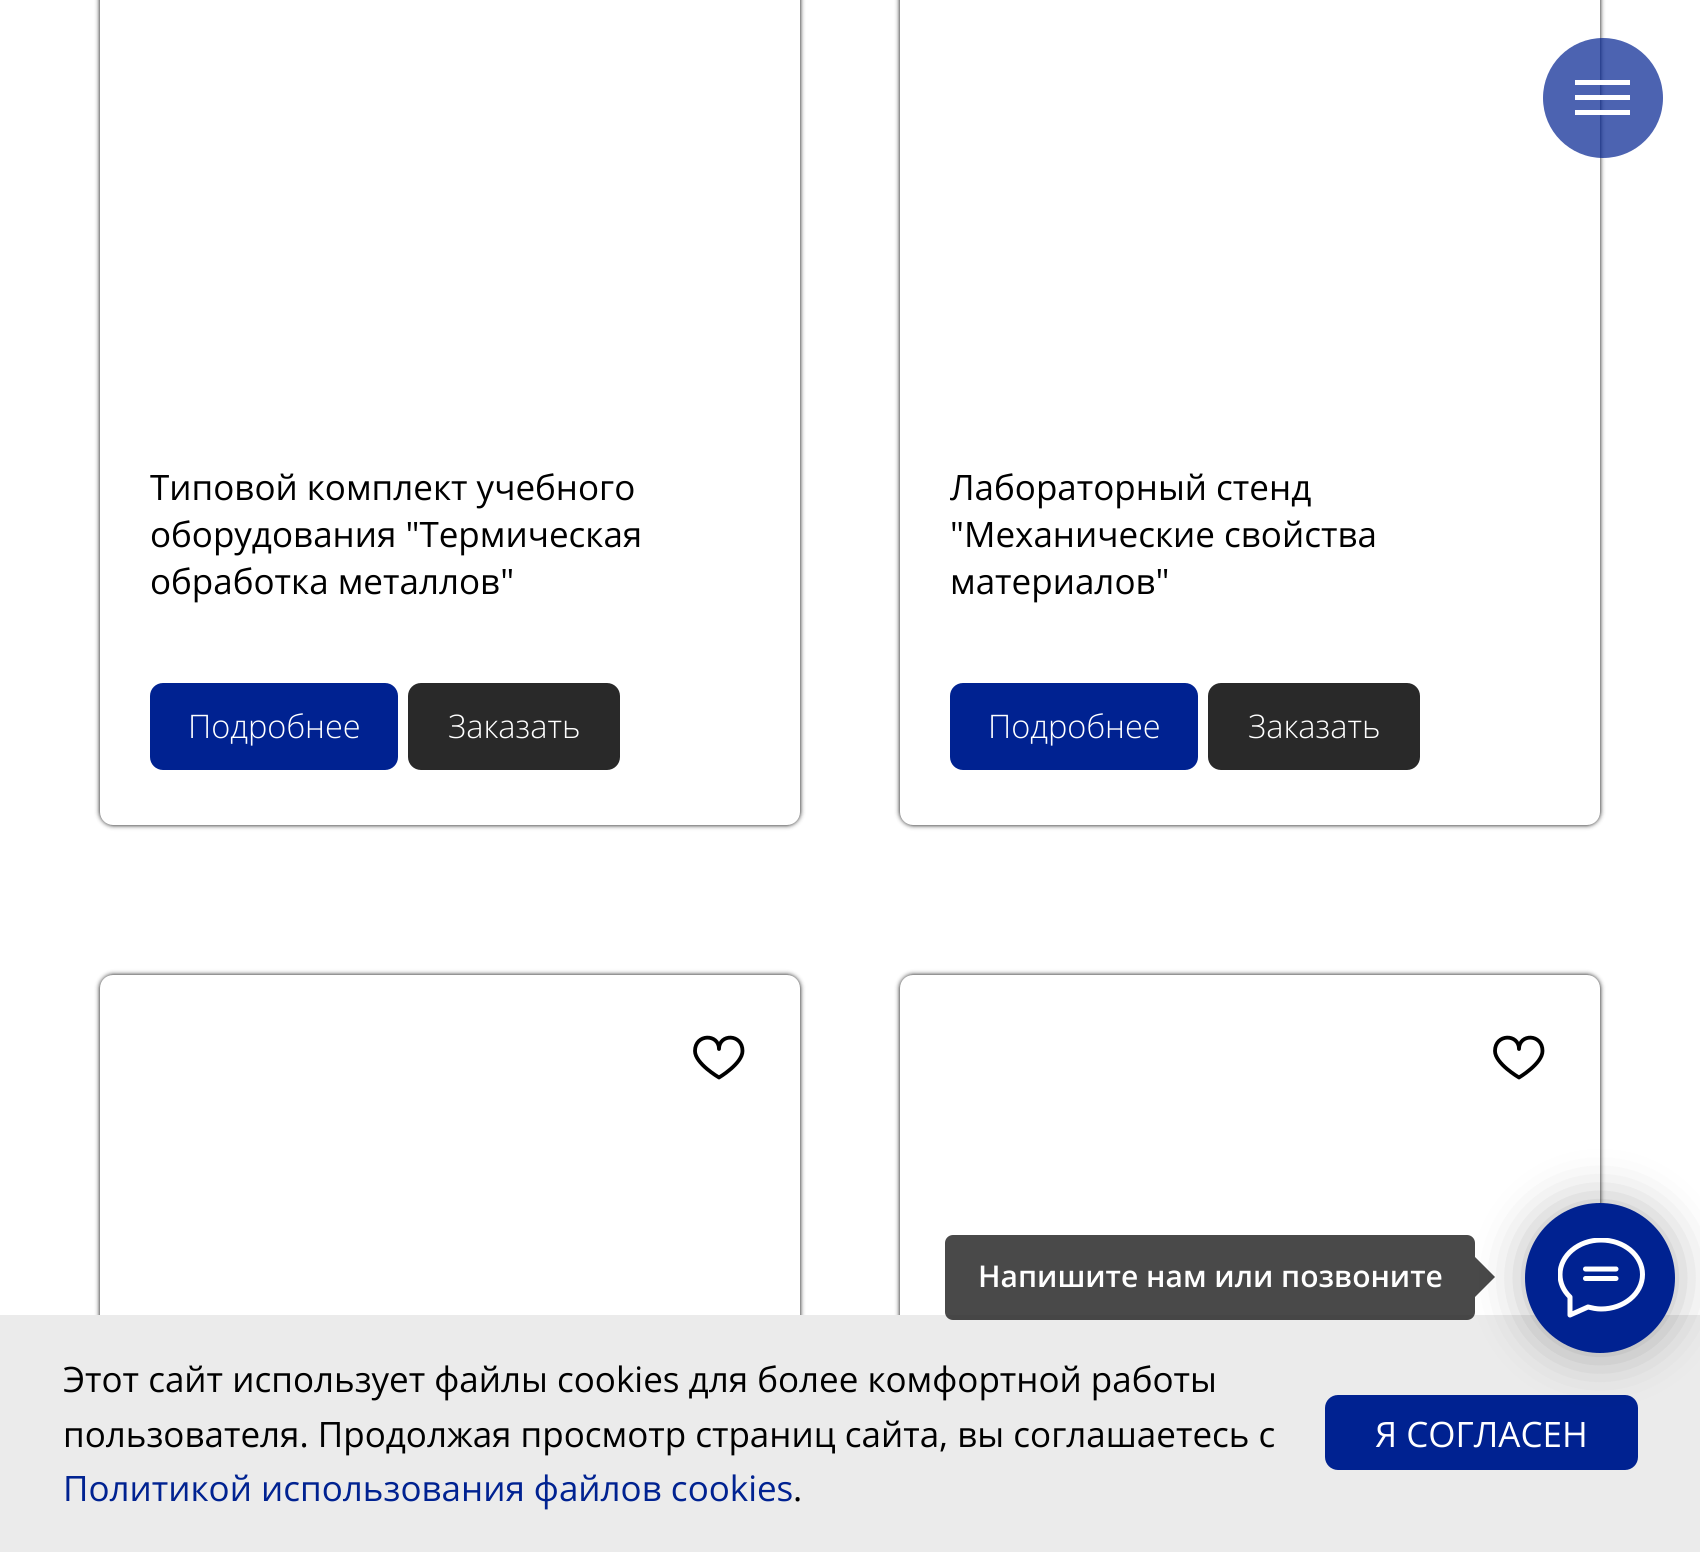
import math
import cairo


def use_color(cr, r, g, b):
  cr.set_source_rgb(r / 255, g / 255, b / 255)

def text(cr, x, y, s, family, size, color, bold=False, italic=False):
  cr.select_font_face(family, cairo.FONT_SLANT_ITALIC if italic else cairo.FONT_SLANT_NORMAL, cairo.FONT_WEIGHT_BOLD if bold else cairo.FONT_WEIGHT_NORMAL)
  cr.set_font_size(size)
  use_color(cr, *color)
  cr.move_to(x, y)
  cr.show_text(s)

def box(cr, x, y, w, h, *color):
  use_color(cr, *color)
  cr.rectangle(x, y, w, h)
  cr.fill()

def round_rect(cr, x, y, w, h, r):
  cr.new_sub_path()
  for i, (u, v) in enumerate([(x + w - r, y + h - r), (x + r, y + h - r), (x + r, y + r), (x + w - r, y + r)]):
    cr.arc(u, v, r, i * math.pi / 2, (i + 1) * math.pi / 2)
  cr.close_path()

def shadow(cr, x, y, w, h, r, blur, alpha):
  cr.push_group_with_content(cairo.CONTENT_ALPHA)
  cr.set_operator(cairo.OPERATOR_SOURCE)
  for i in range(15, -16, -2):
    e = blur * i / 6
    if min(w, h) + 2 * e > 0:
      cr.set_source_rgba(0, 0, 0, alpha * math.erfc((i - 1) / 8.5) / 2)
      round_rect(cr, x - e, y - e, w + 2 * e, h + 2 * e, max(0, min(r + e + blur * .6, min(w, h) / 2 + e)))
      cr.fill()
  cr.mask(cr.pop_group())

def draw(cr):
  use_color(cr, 255, 255, 255)
  cr.paint()
  use_color(cr, 0, 0, 0)
  shadow(cr, 100, -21, 700, 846, 13, 2.5, 1)
  use_color(cr, 255, 255, 255)
  round_rect(cr, 100, -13, 700, 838, 13)
  cr.fill()
  use_color(cr, 0, 34, 145)
  round_rect(cr, 150, 683, 248, 87, 13)
  cr.fill()
  use_color(cr, 41, 41, 41)
  round_rect(cr, 409.5, 684.5, 209, 84, 11.5)
  cr.fill_preserve()
  cr.set_line_width(3)
  cr.stroke()
  use_color(cr, 0, 0, 0)
  shadow(cr, 900, -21, 700, 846, 13, 2.5, 1)
  use_color(cr, 255, 255, 255)
  round_rect(cr, 900, -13, 700, 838, 13)
  cr.fill()
  use_color(cr, 0, 34, 145)
  round_rect(cr, 950, 683, 248, 87, 13)
  cr.fill()
  use_color(cr, 41, 41, 41)
  round_rect(cr, 1209.5, 684.5, 209, 84, 11.5)
  cr.fill_preserve()
  cr.stroke()
  use_color(cr, 0, 0, 0)
  shadow(cr, 100, 975, 700, 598, 13, 2.5, 1)
  use_color(cr, 255, 255, 255)
  round_rect(cr, 100, 975, 700, 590, 13)
  cr.fill()
  cr.new_path()
  cr.move_to(742.5, 1051)
  cr.curve_to(742.5, 1063.5, 719, 1077.5, 719, 1077.5)
  cr.curve_to(719, 1077.5, 695, 1063.5, 695, 1051)
  cr.curve_to(695, 1033.5, 719, 1033.5, 719, 1049)
  cr.curve_to(719, 1033.5, 742.5, 1033.5, 742.5, 1051)
  cr.close_path()
  use_color(cr, 0, 0, 0)
  cr.set_line_width(3.8)
  cr.set_line_join(cairo.LINE_JOIN_ROUND)
  cr.stroke()
  use_color(cr, 0, 0, 0)
  shadow(cr, 900, 975, 700, 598, 13, 2.5, 1)
  use_color(cr, 255, 255, 255)
  round_rect(cr, 900, 975, 700, 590, 13)
  cr.fill()
  cr.new_path()
  cr.move_to(1542.5, 1051)
  cr.curve_to(1542.5, 1063.5, 1519, 1077.5, 1519, 1077.5)
  cr.curve_to(1519, 1077.5, 1495, 1063.5, 1495, 1051)
  cr.curve_to(1495, 1033.5, 1519, 1033.5, 1519, 1049)
  cr.curve_to(1519, 1033.5, 1542.5, 1033.5, 1542.5, 1051)
  cr.close_path()
  use_color(cr, 0, 0, 0)
  cr.stroke()
  cr.set_source_rgba(0, 0.133, 0.569, 0.7)
  cr.arc(1603, 98, 60, 0, 2 * math.pi)
  cr.fill()
  box(cr, 1575, 80, 55, 5, 255, 255, 255)
  box(cr, 1575, 95, 55, 5, 255, 255, 255)
  box(cr, 1575, 110, 55, 5, 255, 255, 255)
  box(cr, 0, 1315, 1700, 237, 235, 235, 235)
  cr.set_source_rgba(0.161, 0.161, 0.161, 0.85)
  round_rect(cr, 945, 1235, 530, 85, 8)
  cr.fill()
  use_color(cr, 73, 73, 73)
  cr.new_path()
  cr.move_to(1475, 1297)
  cr.line_to(1475, 1257)
  cr.line_to(1495, 1277)
  cr.close_path()
  cr.fill()
  use_color(cr, 0, 34, 145)
  round_rect(cr, 1325, 1395, 313, 75, 13)
  cr.fill()
  use_color(cr, 0, 0, 0)
  shadow(cr, 1525, 1203, 150, 150, 75, 25, 0.3)
  use_color(cr, 0, 34, 145)
  cr.arc(1600, 1278, 75, 0, 2 * math.pi)
  cr.fill()
  cr.save()
  cr.rectangle(1558, 1238, 87, 80)
  cr.clip()
  cr.new_path()
  cr.move_to(1585.5, 1269)
  cr.line_to(1616, 1269)
  cr.move_to(1585.5, 1278.5)
  cr.line_to(1616, 1278.5)
  cr.move_to(1569.5, 1296.5)
  cr.curve_to(1563.5, 1290.5, 1560, 1283, 1560, 1274.5)
  cr.curve_to(1560, 1255.5, 1578.5, 1240, 1601, 1240)
  cr.curve_to(1624, 1240, 1642.5, 1255.5, 1642.5, 1274.5)
  cr.curve_to(1642.5, 1293.5, 1624, 1309, 1601, 1309)
  cr.curve_to(1596.5, 1309, 1592, 1308, 1588, 1307)
  cr.line_to(1570, 1315)
  cr.line_to(1570, 1297)
  cr.close_path()
  use_color(cr, 255, 255, 255)
  cr.set_line_width(5)
  cr.set_line_cap(cairo.LINE_CAP_ROUND)
  cr.stroke()
  cr.restore()
  text(cr, 150, 500, "Типовой комплект учебного", "Open Sans", 35, (0, 0, 0))
  text(cr, 150, 547, "оборудования \"Термическая", "Open Sans", 35, (0, 0, 0))
  text(cr, 150, 594, "обработка металлов\"", "Open Sans", 35, (0, 0, 0))
  text(cr, 188, 738, "Подробнее", "Open Sans Light", 32.5, (255, 255, 255))
  text(cr, 448, 738, "Заказать", "Open Sans Light", 32.5, (255, 255, 255))
  text(cr, 950, 500, "Лабораторный стенд", "Open Sans", 35, (0, 0, 0))
  text(cr, 950, 547, "\"Механические свойства", "Open Sans", 35, (0, 0, 0))
  text(cr, 950, 594, "материалов\"", "Open Sans", 35, (0, 0, 0))
  text(cr, 988, 738, "Подробнее", "Open Sans Light", 32.5, (255, 255, 255))
  text(cr, 1248, 738, "Заказать", "Open Sans Light", 32.5, (255, 255, 255))
  text(cr, 978, 1287, "Напишите нам или позвоните", "Open Sans SemiBold", 30, (255, 255, 255))
  text(cr, 63, 1392, "Этот сайт использует файлы cookies для более комфортной работы", "Open Sans", 35, (0, 0, 0))
  text(cr, 63, 1447, "пользователя. Продолжая просмотр страниц сайта, вы соглашаетесь с", "Open Sans", 35, (0, 0, 0))
  text(cr, 63, 1501, "Политикой использования файлов cookies", "Open Sans", 35, (0, 34, 145))
  text(cr, 793, 1501, ".", "Open Sans", 35, (0, 0, 0))
  text(cr, 1375, 1447, "Я СОГЛАСЕН", "Open Sans", 35, (255, 255, 255))


surface = cairo.ImageSurface(cairo.FORMAT_RGB24, 1700, 1552)
cr = cairo.Context(surface)
options = cairo.FontOptions()
options.set_hint_metrics(cairo.HINT_METRICS_OFF)
options.set_hint_style(cairo.HINT_STYLE_NONE)
cr.set_font_options(options)
cr.set_miter_limit(4)
draw(cr)
surface.write_to_png("out.png")
